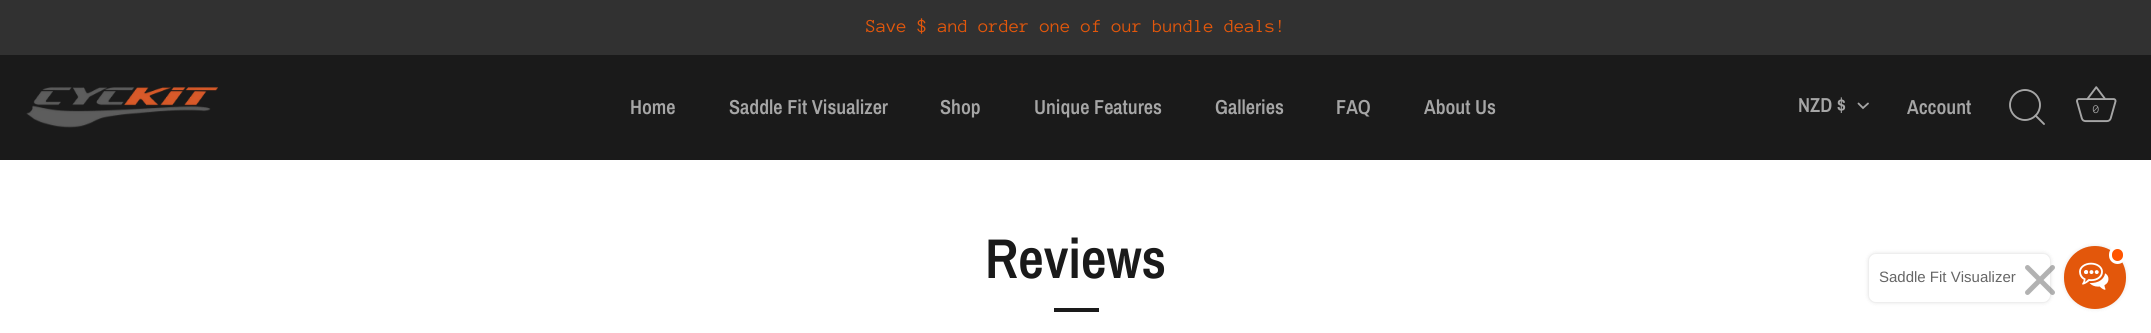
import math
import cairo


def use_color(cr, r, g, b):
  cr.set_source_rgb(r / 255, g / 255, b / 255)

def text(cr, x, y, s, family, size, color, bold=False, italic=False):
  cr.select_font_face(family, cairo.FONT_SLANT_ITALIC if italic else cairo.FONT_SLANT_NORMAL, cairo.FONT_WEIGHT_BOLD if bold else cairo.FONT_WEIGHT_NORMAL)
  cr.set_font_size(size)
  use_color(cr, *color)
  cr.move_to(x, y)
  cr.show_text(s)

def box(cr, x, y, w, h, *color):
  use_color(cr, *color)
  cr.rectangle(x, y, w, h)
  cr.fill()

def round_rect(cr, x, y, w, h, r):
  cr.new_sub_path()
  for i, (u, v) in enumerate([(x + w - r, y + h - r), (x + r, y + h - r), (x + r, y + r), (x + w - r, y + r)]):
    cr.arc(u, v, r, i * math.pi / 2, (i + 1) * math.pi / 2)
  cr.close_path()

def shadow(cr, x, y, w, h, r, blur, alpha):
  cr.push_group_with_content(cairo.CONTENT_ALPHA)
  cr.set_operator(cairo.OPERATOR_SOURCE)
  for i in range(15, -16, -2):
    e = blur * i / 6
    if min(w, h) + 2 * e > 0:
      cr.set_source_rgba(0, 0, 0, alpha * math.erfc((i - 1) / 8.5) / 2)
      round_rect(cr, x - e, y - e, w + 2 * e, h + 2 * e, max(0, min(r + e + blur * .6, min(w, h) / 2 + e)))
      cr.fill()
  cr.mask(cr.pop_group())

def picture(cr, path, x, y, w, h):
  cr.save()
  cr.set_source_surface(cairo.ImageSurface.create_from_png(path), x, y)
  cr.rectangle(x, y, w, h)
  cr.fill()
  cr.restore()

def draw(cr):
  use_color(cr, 255, 255, 255)
  cr.paint()
  box(cr, 0, 55, 2151, 105, 26, 26, 26)
  box(cr, 0, 0, 2151, 55, 49, 49, 49)
  picture(cr, "img_01.png", 26, 87, 192, 41)
  cr.new_path()
  cr.move_to(1858.5, 103.5)
  cr.line_to(1863, 108)
  cr.line_to(1868, 103.5)
  use_color(cr, 166, 166, 166)
  cr.set_line_width(1.8)
  cr.set_line_cap(cairo.LINE_CAP_ROUND)
  cr.stroke()
  cr.arc(2025, 105, 15, 0, 2 * math.pi)
  cr.set_line_width(1.9)
  cr.set_line_cap(cairo.LINE_CAP_BUTT)
  cr.stroke()
  cr.new_path()
  cr.move_to(2044, 124)
  cr.line_to(2035.5, 115.5)
  cr.set_line_cap(cairo.LINE_CAP_ROUND)
  cr.set_line_join(cairo.LINE_JOIN_ROUND)
  cr.stroke()
  picture(cr, "img_02.png", 2076, 86, 41, 37)
  box(cr, 1054, 308, 45, 4, 26, 26, 26)
  use_color(cr, 0, 0, 0)
  shadow(cr, 1868, 253, 183, 50, 8, 2, 0.1)
  use_color(cr, 255, 255, 255)
  round_rect(cr, 1868.5, 253.5, 182, 49, 7.5)
  cr.fill_preserve()
  use_color(cr, 238, 238, 238)
  cr.set_line_width(1)
  cr.set_line_cap(cairo.LINE_CAP_BUTT)
  cr.set_line_join(cairo.LINE_JOIN_MITER)
  cr.stroke()
  picture(cr, "img_03.png", 2025, 265, 30, 30)
  use_color(cr, 0, 0, 0)
  shadow(cr, 2064, 246, 62, 63, 31, 2, 0.1)
  use_color(cr, 227, 87, 11)
  round_rect(cr, 2064, 246, 62, 63, 31)
  cr.fill()
  use_color(cr, 255, 85, 0)
  round_rect(cr, 2110.5, 247.5, 14, 15, 7)
  cr.fill_preserve()
  use_color(cr, 255, 255, 255)
  cr.set_line_width(3)
  cr.stroke()
  picture(cr, "img_04.png", 2079, 262, 30, 28)
  text(cr, 866, 32, "Save $ and order one of our bundle deals!", "Anonymous Pro", 18.75, (227, 87, 11))
  text(cr, 630, 114, "Home", "Archivo Narrow SemiBold", 20.25, (166, 166, 166))
  text(cr, 729, 114, "Saddle Fit Visualizer", "Archivo Narrow SemiBold", 20.25, (166, 166, 166))
  text(cr, 940, 114, "Shop", "Archivo Narrow SemiBold", 20.25, (166, 166, 166))
  text(cr, 1034, 114, "Unique Features", "Archivo Narrow SemiBold", 20.25, (166, 166, 166))
  text(cr, 1215, 114, "Galleries", "Archivo Narrow SemiBold", 20.25, (166, 166, 166))
  text(cr, 1336, 114, "FAQ", "Archivo Narrow SemiBold", 20.25, (166, 166, 166))
  text(cr, 1424, 114, "About Us", "Archivo Narrow SemiBold", 20.25, (166, 166, 166))
  text(cr, 1798, 112, "NZD $", "Archivo Narrow SemiBold", 20.25, (166, 166, 166))
  text(cr, 1907, 114, "Account", "Archivo Narrow SemiBold", 20.25, (166, 166, 166))
  text(cr, 2093, 113, "0", "Anonymous Pro", 12, (166, 166, 166))
  text(cr, 985, 278, "Reviews", "Archivo Narrow SemiBold", 56, (26, 26, 26))
  text(cr, 1879, 282, "Saddle Fit Visualizer", "Liberation Sans", 15, (102, 102, 102))


surface = cairo.ImageSurface(cairo.FORMAT_RGB24, 2151, 333)
cr = cairo.Context(surface)
options = cairo.FontOptions()
options.set_hint_metrics(cairo.HINT_METRICS_OFF)
options.set_hint_style(cairo.HINT_STYLE_NONE)
cr.set_font_options(options)
cr.set_miter_limit(4)
draw(cr)
surface.write_to_png("out.png")
